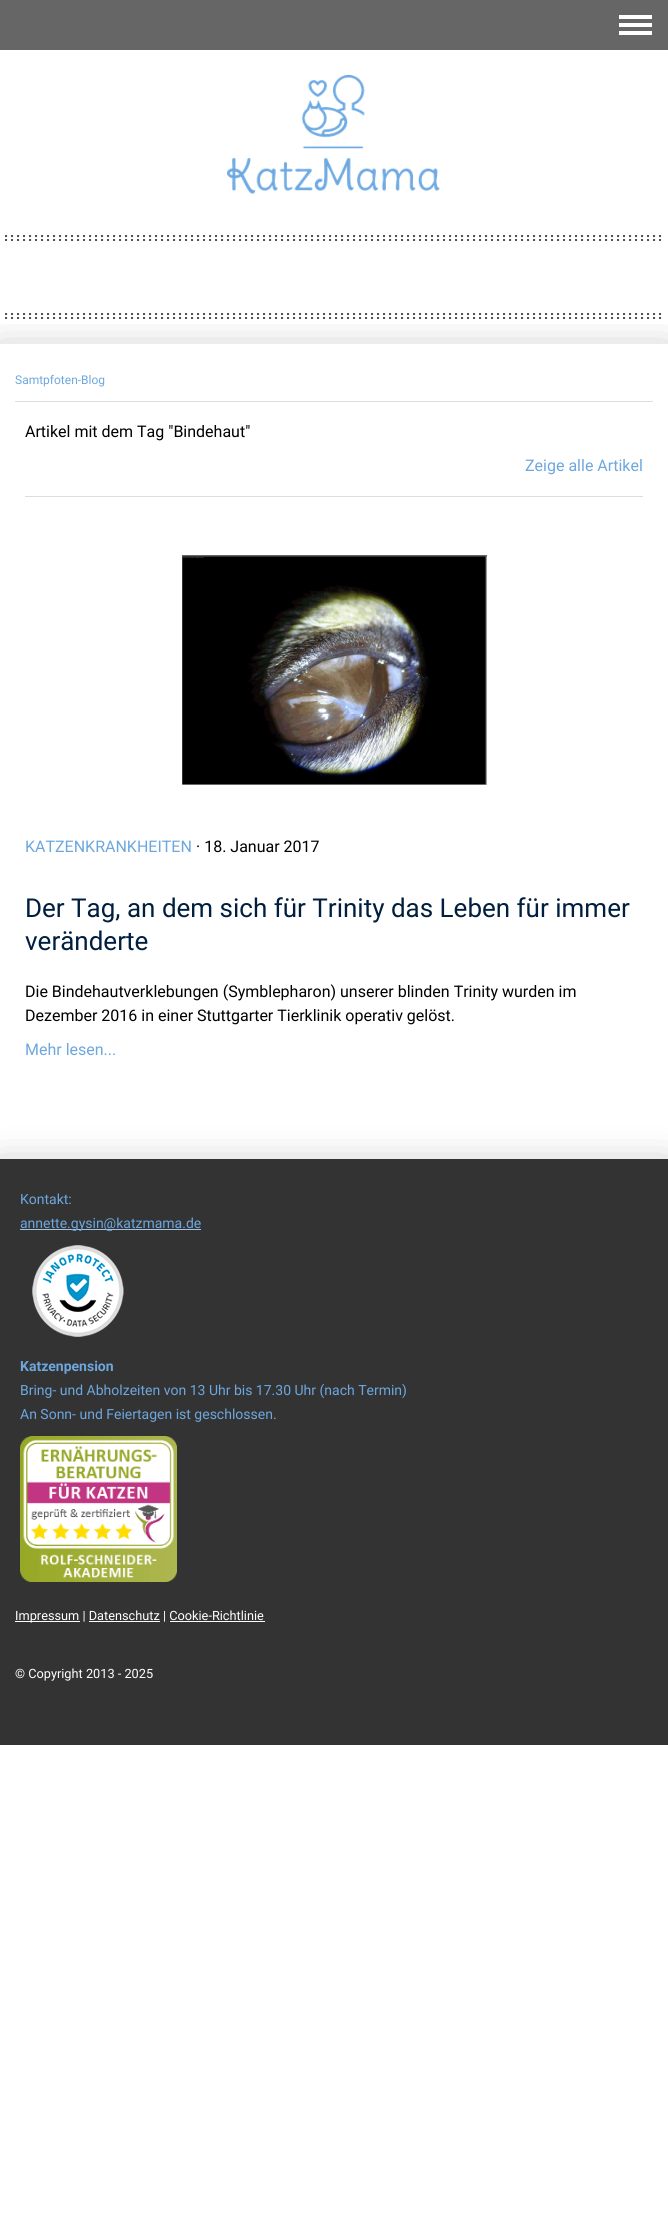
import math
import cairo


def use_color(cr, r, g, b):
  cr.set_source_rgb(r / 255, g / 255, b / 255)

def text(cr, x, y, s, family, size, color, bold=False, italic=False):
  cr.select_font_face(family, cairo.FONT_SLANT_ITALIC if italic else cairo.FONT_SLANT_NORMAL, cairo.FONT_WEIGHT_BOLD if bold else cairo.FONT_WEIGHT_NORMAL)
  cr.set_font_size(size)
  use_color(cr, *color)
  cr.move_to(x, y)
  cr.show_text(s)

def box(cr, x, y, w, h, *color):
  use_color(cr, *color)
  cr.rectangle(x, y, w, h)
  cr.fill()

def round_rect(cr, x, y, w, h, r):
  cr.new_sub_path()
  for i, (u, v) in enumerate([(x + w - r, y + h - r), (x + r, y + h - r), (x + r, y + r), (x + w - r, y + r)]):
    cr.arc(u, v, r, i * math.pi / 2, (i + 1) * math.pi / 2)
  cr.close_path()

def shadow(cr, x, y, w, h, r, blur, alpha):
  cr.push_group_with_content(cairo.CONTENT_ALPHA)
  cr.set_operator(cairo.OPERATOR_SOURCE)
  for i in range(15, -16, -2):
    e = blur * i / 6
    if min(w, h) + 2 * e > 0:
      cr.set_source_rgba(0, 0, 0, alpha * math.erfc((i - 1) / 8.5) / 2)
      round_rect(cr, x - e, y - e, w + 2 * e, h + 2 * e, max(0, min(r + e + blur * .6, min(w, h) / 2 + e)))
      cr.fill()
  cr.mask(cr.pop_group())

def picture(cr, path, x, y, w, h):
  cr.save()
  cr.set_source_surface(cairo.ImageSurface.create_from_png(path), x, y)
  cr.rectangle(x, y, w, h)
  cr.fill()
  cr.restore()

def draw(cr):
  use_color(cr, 255, 255, 255)
  cr.paint()
  box(cr, 0, 0, 668, 50, 102, 102, 102)
  box(cr, 619, 23, 33, 4, 255, 255, 255)
  box(cr, 619, 15, 33, 4, 255, 255, 255)
  box(cr, 619, 31, 33, 4, 255, 255, 255)
  picture(cr, "img_01.png", 227, 75, 213, 120)
  picture(cr, "img_02.png", 5, 235, 657, 6)
  picture(cr, "img_02.png", 5, 313, 657, 6)
  cr.save()
  cr.rectangle(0, 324, 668, 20)
  cr.clip()
  use_color(cr, 0, 0, 0)
  shadow(cr, 0, 354, 668, 815, 0, 20, 0.3)
  cr.restore()
  box(cr, 15, 401, 638, 1, 221, 221, 221)
  box(cr, 25, 496, 618, 1, 221, 221, 221)
  picture(cr, "img_03.png", 182, 555, 305, 230)
  cr.save()
  cr.rectangle(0, 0, 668, 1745)
  cr.clip()
  use_color(cr, 0, 0, 0)
  shadow(cr, 0, 1169, 668, 586, 0, 20, 0.3)
  cr.restore()
  box(cr, 0, 1159, 668, 586, 51, 51, 51)
  box(cr, 20, 1229, 181, 1, 158, 196, 234)
  picture(cr, "img_04.png", 32, 1245, 92, 92)
  picture(cr, "img_05.png", 20, 1436, 157, 146)
  box(cr, 15, 1621, 65, 1, 255, 255, 255)
  box(cr, 89, 1621, 71, 1, 255, 255, 255)
  box(cr, 170, 1621, 95, 1, 255, 255, 255)
  text(cr, 15, 384, "Samtpfoten-Blog", "Roboto", 12, (109, 167, 222))
  text(cr, 25, 437, "Artikel mit dem Tag \"Bindehaut\"", "Roboto", 16, (0, 0, 0))
  text(cr, 525, 471, "Zeige alle Artikel", "Roboto", 16, (109, 167, 222))
  text(cr, 25, 852, "KATZENKRANKHEITEN", "Roboto", 16, (109, 167, 222))
  text(cr, 196, 852, "· 18. Januar 2017", "Roboto", 16, (0, 0, 0))
  text(cr, 25, 917, "Der Tag, an dem sich für Trinity das Leben für immer", "Roboto", 26, (0, 31, 63))
  text(cr, 25, 950, "veränderte", "Roboto", 26, (0, 31, 63))
  text(cr, 25, 997, "Die Bindehautverklebungen (Symblepharon) unserer blinden Trinity wurden im", "Roboto", 16, (0, 0, 0))
  text(cr, 25, 1021, "Dezember 2016 in einer Stuttgarter Tierklinik operativ gelöst.", "Roboto", 16, (0, 0, 0))
  text(cr, 25, 1055, "Mehr lesen...", "Roboto", 16, (109, 167, 222))
  text(cr, 20, 1204, "Kontakt:", "Roboto", 14, (109, 167, 222))
  text(cr, 20, 1228, "annette.gysin@katzmama.de", "Roboto", 14, (109, 167, 222))
  text(cr, 20, 1371, "Katzenpension", "Roboto", 14, (109, 167, 222), bold=True)
  text(cr, 20, 1395, "Bring- und Abholzeiten von 13 Uhr bis 17.30 Uhr (nach Termin)", "Roboto", 14, (109, 167, 222))
  text(cr, 20, 1419, "An Sonn- und Feiertagen ist geschlossen.", "Roboto", 14, (109, 167, 222))
  text(cr, 15, 1620, "Impressum | Datenschutz | Cookie-Richtlinie", "Roboto", 12.75, (255, 255, 255))
  text(cr, 15, 1678, "© Copyright 2013 - 2025", "Roboto", 12.75, (255, 255, 255))


surface = cairo.ImageSurface(cairo.FORMAT_RGB24, 668, 2229)
cr = cairo.Context(surface)
options = cairo.FontOptions()
options.set_hint_metrics(cairo.HINT_METRICS_OFF)
options.set_hint_style(cairo.HINT_STYLE_NONE)
cr.set_font_options(options)
cr.set_miter_limit(4)
draw(cr)
surface.write_to_png("out.png")
